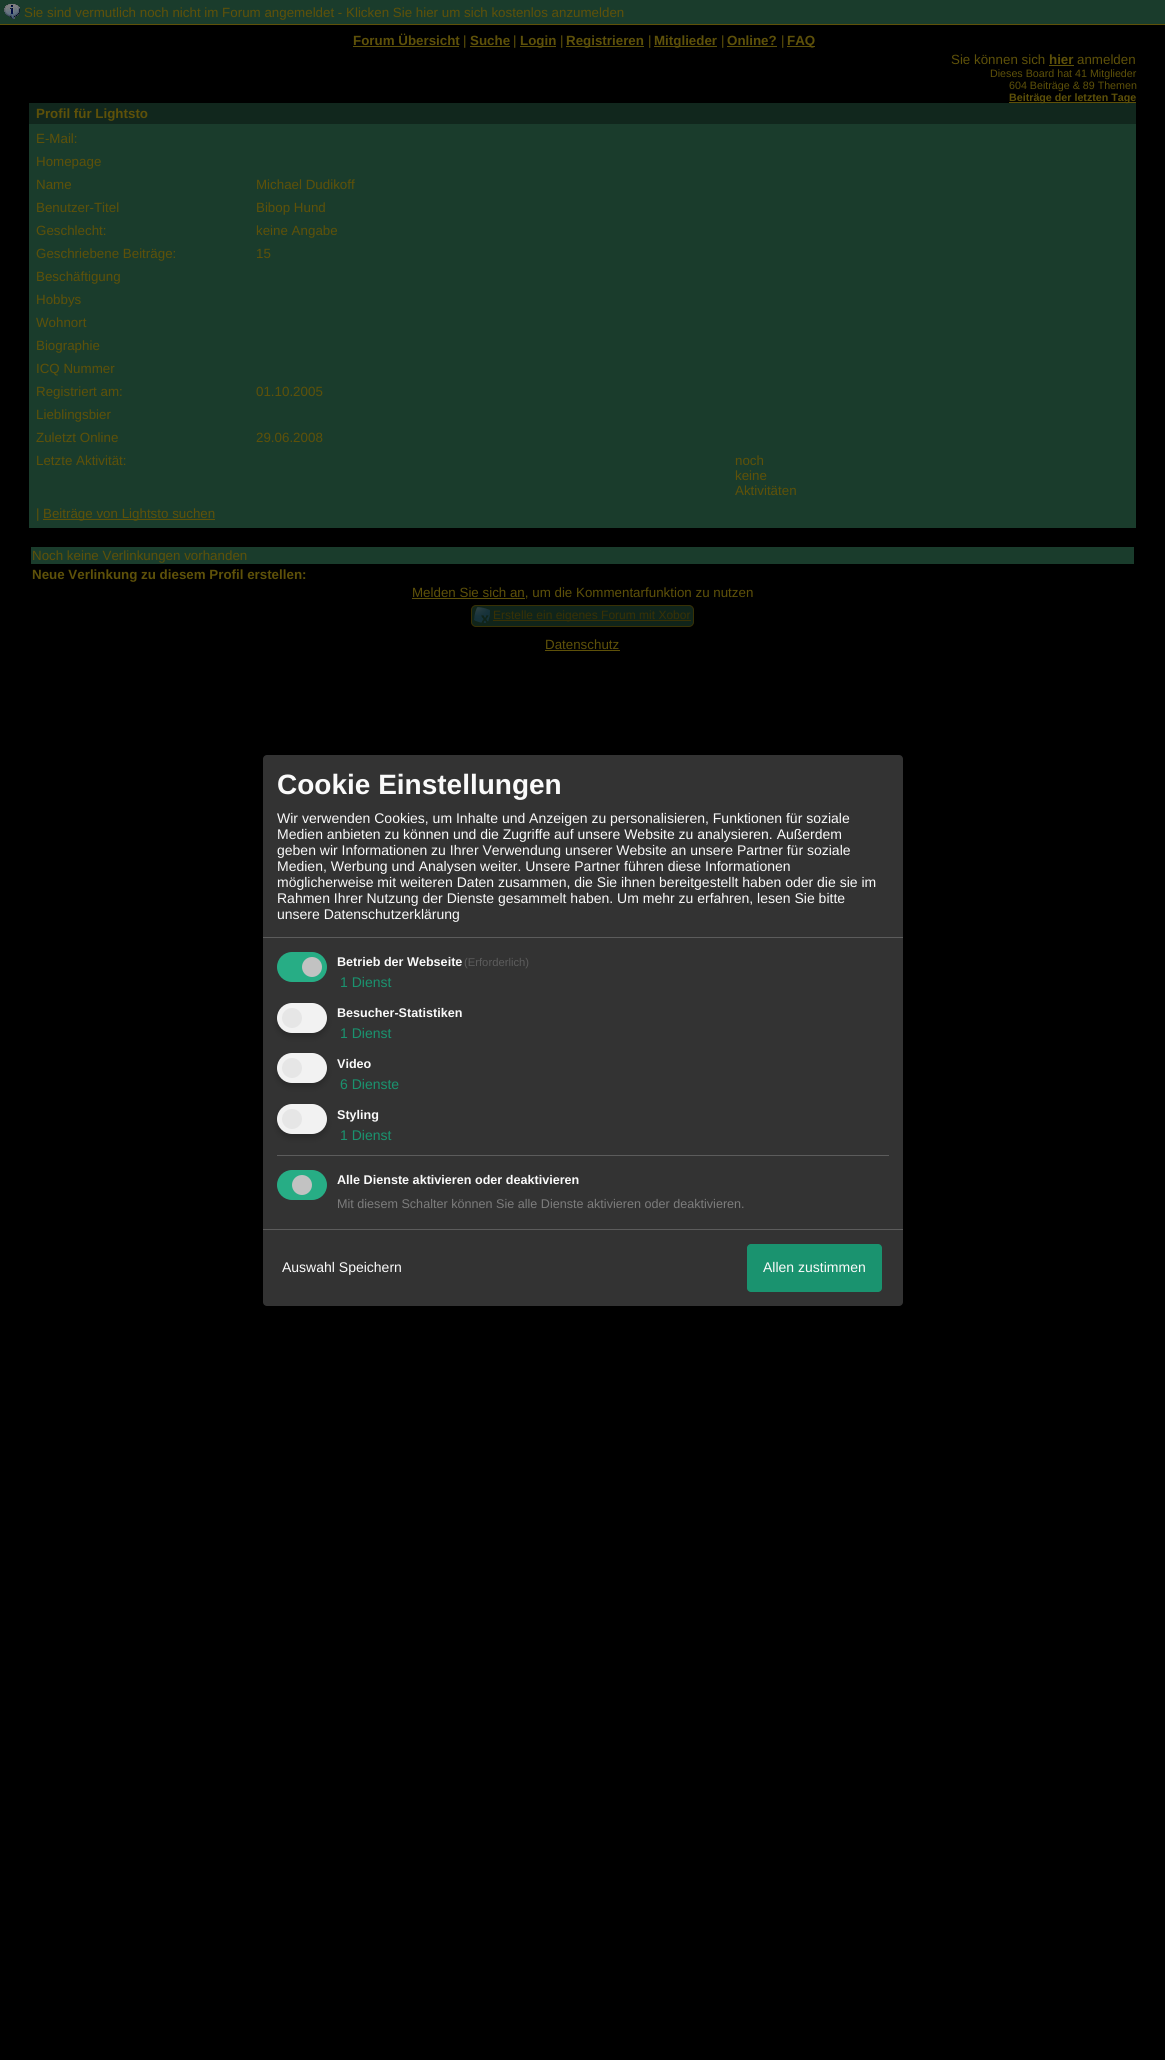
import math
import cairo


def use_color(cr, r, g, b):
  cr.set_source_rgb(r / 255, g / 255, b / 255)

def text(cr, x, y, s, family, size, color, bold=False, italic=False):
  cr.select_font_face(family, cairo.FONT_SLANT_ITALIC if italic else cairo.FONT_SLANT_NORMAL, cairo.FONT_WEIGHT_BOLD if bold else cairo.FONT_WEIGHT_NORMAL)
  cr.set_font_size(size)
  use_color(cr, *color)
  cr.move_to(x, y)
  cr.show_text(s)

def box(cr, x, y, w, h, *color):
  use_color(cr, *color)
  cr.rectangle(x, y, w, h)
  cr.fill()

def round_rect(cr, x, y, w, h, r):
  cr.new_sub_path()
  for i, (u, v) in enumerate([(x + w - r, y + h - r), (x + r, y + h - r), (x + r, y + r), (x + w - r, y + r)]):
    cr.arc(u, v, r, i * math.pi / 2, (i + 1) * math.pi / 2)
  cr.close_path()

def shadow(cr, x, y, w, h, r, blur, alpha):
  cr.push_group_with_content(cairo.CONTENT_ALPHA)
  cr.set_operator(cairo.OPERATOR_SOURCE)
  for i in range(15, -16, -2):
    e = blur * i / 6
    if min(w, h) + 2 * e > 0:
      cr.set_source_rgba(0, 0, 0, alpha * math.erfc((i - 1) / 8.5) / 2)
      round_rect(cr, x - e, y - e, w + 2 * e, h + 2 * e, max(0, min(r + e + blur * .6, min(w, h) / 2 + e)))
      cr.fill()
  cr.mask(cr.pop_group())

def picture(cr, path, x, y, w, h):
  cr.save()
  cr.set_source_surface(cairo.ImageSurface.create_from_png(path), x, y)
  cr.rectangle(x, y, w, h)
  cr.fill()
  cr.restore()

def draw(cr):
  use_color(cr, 0, 0, 0)
  cr.paint()
  box(cr, 0, 0, 1165, 24, 26, 60, 44)
  box(cr, 0, 24, 1165, 1, 94, 81, 9)
  picture(cr, "img_01.png", 4, 4, 16, 15)
  box(cr, 353, 46, 106, 1, 94, 81, 9)
  box(cr, 470, 46, 40, 1, 94, 81, 9)
  box(cr, 520, 46, 36, 1, 94, 81, 9)
  box(cr, 566, 46, 78, 1, 94, 81, 9)
  box(cr, 654, 46, 63, 1, 94, 81, 9)
  box(cr, 727, 46, 50, 1, 94, 81, 9)
  box(cr, 787, 46, 28, 1, 94, 81, 9)
  box(cr, 1049, 65, 25, 1, 94, 81, 9)
  box(cr, 1009, 102, 127, 1, 94, 81, 9)
  box(cr, 29, 103, 1107, 21, 17, 39, 29)
  box(cr, 29, 124, 1107, 404, 26, 60, 44)
  box(cr, 43, 519, 172, 1, 94, 81, 9)
  box(cr, 31, 547, 1103, 17, 26, 60, 44)
  box(cr, 412, 598, 113, 1, 94, 81, 9)
  use_color(cr, 16, 36, 26)
  round_rect(cr, 471.5, 605.5, 222, 21, 4.5)
  cr.fill_preserve()
  use_color(cr, 56, 49, 5)
  cr.set_line_width(1)
  cr.stroke()
  picture(cr, "img_02.png", 474, 607, 16, 16)
  box(cr, 493, 620, 198, 1, 56, 49, 5)
  box(cr, 545, 650, 75, 1, 94, 81, 9)
  use_color(cr, 51, 51, 51)
  round_rect(cr, 263, 755, 640, 551, 4)
  cr.fill()
  box(cr, 263, 937, 640, 1, 92, 92, 92)
  use_color(cr, 39, 173, 133)
  round_rect(cr, 277, 952, 50, 30, 15)
  cr.fill()
  use_color(cr, 194, 194, 194)
  cr.arc(312, 967, 10, 0, 2 * math.pi)
  cr.fill()
  use_color(cr, 0, 0, 0)
  shadow(cr, 277, 1007, 50, 30, 15, 3, 0.2)
  use_color(cr, 242, 242, 242)
  round_rect(cr, 277, 1003, 50, 30, 15)
  cr.fill()
  use_color(cr, 230, 230, 230)
  cr.arc(292, 1018, 10, 0, 2 * math.pi)
  cr.fill()
  use_color(cr, 0, 0, 0)
  shadow(cr, 277, 1057, 50, 30, 15, 3, 0.2)
  use_color(cr, 242, 242, 242)
  round_rect(cr, 277, 1053, 50, 30, 15)
  cr.fill()
  use_color(cr, 230, 230, 230)
  cr.arc(292, 1068, 10, 0, 2 * math.pi)
  cr.fill()
  use_color(cr, 0, 0, 0)
  shadow(cr, 277, 1108, 50, 30, 15, 3, 0.2)
  use_color(cr, 242, 242, 242)
  round_rect(cr, 277, 1104, 50, 30, 15)
  cr.fill()
  use_color(cr, 230, 230, 230)
  cr.arc(292, 1119, 10, 0, 2 * math.pi)
  cr.fill()
  box(cr, 277, 1155, 612, 1, 92, 92, 92)
  use_color(cr, 39, 173, 133)
  round_rect(cr, 277, 1170, 50, 30, 15)
  cr.fill()
  use_color(cr, 194, 194, 194)
  cr.arc(302, 1185, 10, 0, 2 * math.pi)
  cr.fill()
  box(cr, 263, 1229, 640, 1, 92, 92, 92)
  use_color(cr, 26, 147, 111)
  round_rect(cr, 747, 1244, 135, 48, 4)
  cr.fill()
  text(cr, 24, 17, "Sie sind vermutlich noch nicht im Forum angemeldet - Klicken Sie hier um sich kostenlos anzumelden", "Liberation Sans", 13.35, (94, 81, 9))
  text(cr, 353, 45, "Forum Übersicht", "Liberation Sans", 13.35, (94, 81, 9), bold=True)
  text(cr, 463, 45, "|", "Liberation Sans", 13.35, (94, 81, 9))
  text(cr, 470, 45, "Suche", "Liberation Sans", 13.35, (94, 81, 9), bold=True)
  text(cr, 513, 45, "|", "Liberation Sans", 13.35, (94, 81, 9))
  text(cr, 520, 45, "Login", "Liberation Sans", 13.35, (94, 81, 9), bold=True)
  text(cr, 560, 45, "|", "Liberation Sans", 13.35, (94, 81, 9))
  text(cr, 566, 45, "Registrieren", "Liberation Sans", 13.35, (94, 81, 9), bold=True)
  text(cr, 648, 45, "|", "Liberation Sans", 13.35, (94, 81, 9))
  text(cr, 654, 45, "Mitglieder", "Liberation Sans", 13.35, (94, 81, 9), bold=True)
  text(cr, 721, 45, "|", "Liberation Sans", 13.35, (94, 81, 9))
  text(cr, 727, 45, "Online?", "Liberation Sans", 13.35, (94, 81, 9), bold=True)
  text(cr, 781, 45, "|", "Liberation Sans", 13.35, (94, 81, 9))
  text(cr, 787, 45, "FAQ", "Liberation Sans", 13.35, (94, 81, 9), bold=True)
  text(cr, 951, 64, "Sie können sich", "Liberation Sans", 13.35, (94, 81, 9))
  text(cr, 1049, 64, "hier", "Liberation Sans", 13.35, (94, 81, 9), bold=True)
  text(cr, 1077, 64, "anmelden", "Liberation Sans", 13.35, (94, 81, 9))
  text(cr, 990, 77, "Dieses Board hat 41 Mitglieder", "Liberation Sans", 10.7, (94, 81, 9))
  text(cr, 1009, 89, "604 Beiträge & 89 Themen", "Liberation Sans", 10.7, (94, 81, 9))
  text(cr, 1009, 101, "Beiträge der letzten Tage", "Liberation Sans", 10.7, (94, 81, 9), bold=True)
  text(cr, 36, 118, "Profil für Lightsto", "Liberation Sans", 13.35, (94, 81, 9), bold=True)
  text(cr, 36, 143, "E-Mail:", "Liberation Sans", 13.35, (94, 81, 9))
  text(cr, 36, 166, "Homepage", "Liberation Sans", 13.35, (94, 81, 9))
  text(cr, 36, 189, "Name", "Liberation Sans", 13.35, (94, 81, 9))
  text(cr, 256, 189, "Michael Dudikoff", "Liberation Sans", 13.35, (94, 81, 9))
  text(cr, 36, 212, "Benutzer-Titel", "Liberation Sans", 13.35, (94, 81, 9))
  text(cr, 256, 212, "Bibop Hund", "Liberation Sans", 13.35, (94, 81, 9))
  text(cr, 36, 235, "Geschlecht:", "Liberation Sans", 13.35, (94, 81, 9))
  text(cr, 256, 235, "keine Angabe", "Liberation Sans", 13.35, (94, 81, 9))
  text(cr, 36, 258, "Geschriebene Beiträge:", "Liberation Sans", 13.35, (94, 81, 9))
  text(cr, 256, 258, "15", "Liberation Sans", 13.35, (94, 81, 9))
  text(cr, 36, 281, "Beschäftigung", "Liberation Sans", 13.35, (94, 81, 9))
  text(cr, 36, 304, "Hobbys", "Liberation Sans", 13.35, (94, 81, 9))
  text(cr, 36, 327, "Wohnort", "Liberation Sans", 13.35, (94, 81, 9))
  text(cr, 36, 350, "Biographie", "Liberation Sans", 13.35, (94, 81, 9))
  text(cr, 36, 373, "ICQ Nummer", "Liberation Sans", 13.35, (94, 81, 9))
  text(cr, 36, 396, "Registriert am:", "Liberation Sans", 13.35, (94, 81, 9))
  text(cr, 256, 396, "01.10.2005", "Liberation Sans", 13.35, (94, 81, 9))
  text(cr, 36, 419, "Lieblingsbier", "Liberation Sans", 13.35, (94, 81, 9))
  text(cr, 36, 442, "Zuletzt Online", "Liberation Sans", 13.35, (94, 81, 9))
  text(cr, 256, 442, "29.06.2008", "Liberation Sans", 13.35, (94, 81, 9))
  text(cr, 36, 465, "Letzte Aktivität:", "Liberation Sans", 13.35, (94, 81, 9))
  text(cr, 735, 465, "noch", "Liberation Sans", 13.35, (94, 81, 9))
  text(cr, 735, 480, "keine", "Liberation Sans", 13.35, (94, 81, 9))
  text(cr, 735, 495, "Aktivitäten", "Liberation Sans", 13.35, (94, 81, 9))
  text(cr, 36, 518, "|", "Liberation Sans", 13.35, (94, 81, 9))
  text(cr, 43, 518, "Beiträge von Lightsto suchen", "Liberation Sans", 13.35, (94, 81, 9))
  text(cr, 32, 560, "Noch keine Verlinkungen vorhanden", "Liberation Sans", 13.35, (94, 81, 9))
  text(cr, 32, 579, "Neue Verlinkung zu diesem Profil erstellen:", "Liberation Sans", 13.35, (94, 81, 9), bold=True)
  text(cr, 412, 597, "Melden Sie sich an, um die Kommentarfunktion zu nutzen", "Liberation Sans", 13.35, (94, 81, 9))
  text(cr, 493, 619, "Erstelle ein eigenes Forum mit Xobor", "Liberation Sans", 12, (56, 49, 5))
  text(cr, 545, 649, "Datenschutz", "Liberation Sans", 13.35, (94, 81, 9))
  text(cr, 277, 794, "Cookie Einstellungen", "Liberation Sans", 28, (250, 250, 250), bold=True)
  text(cr, 277, 823, "Wir verwenden Cookies, um Inhalte und Anzeigen zu personalisieren, Funktionen für soziale", "Liberation Sans", 14, (250, 250, 250))
  text(cr, 277, 839, "Medien anbieten zu können und die Zugriffe auf unsere Website zu analysieren. Außerdem", "Liberation Sans", 14, (250, 250, 250))
  text(cr, 277, 855, "geben wir Informationen zu Ihrer Verwendung unserer Website an unsere Partner für soziale", "Liberation Sans", 14, (250, 250, 250))
  text(cr, 277, 871, "Medien, Werbung und Analysen weiter. Unsere Partner führen diese Informationen", "Liberation Sans", 14, (250, 250, 250))
  text(cr, 277, 887, "möglicherweise mit weiteren Daten zusammen, die Sie ihnen bereitgestellt haben oder die sie im", "Liberation Sans", 14, (250, 250, 250))
  text(cr, 277, 903, "Rahmen Ihrer Nutzung der Dienste gesammelt haben. Um mehr zu erfahren, lesen Sie bitte", "Liberation Sans", 14, (250, 250, 250))
  text(cr, 277, 919, "unsere Datenschutzerklärung", "Liberation Sans", 14, (250, 250, 250))
  text(cr, 337, 966, "Betrieb der Webseite", "Liberation Sans", 12.6, (250, 250, 250), bold=True)
  text(cr, 464, 966, "(Erforderlich)", "Liberation Sans", 11.25, (92, 92, 92))
  text(cr, 340, 987, "1 Dienst", "Liberation Sans", 14, (26, 147, 111))
  text(cr, 337, 1017, "Besucher-Statistiken", "Liberation Sans", 12.6, (250, 250, 250), bold=True)
  text(cr, 340, 1038, "1 Dienst", "Liberation Sans", 14, (26, 147, 111))
  text(cr, 337, 1068, "Video", "Liberation Sans", 12.6, (250, 250, 250), bold=True)
  text(cr, 340, 1089, "6 Dienste", "Liberation Sans", 14, (26, 147, 111))
  text(cr, 337, 1119, "Styling", "Liberation Sans", 12.6, (250, 250, 250), bold=True)
  text(cr, 340, 1140, "1 Dienst", "Liberation Sans", 14, (26, 147, 111))
  text(cr, 337, 1184, "Alle Dienste aktivieren oder deaktivieren", "Liberation Sans", 12.6, (250, 250, 250), bold=True)
  text(cr, 337, 1208, "Mit diesem Schalter können Sie alle Dienste aktivieren oder deaktivieren.", "Liberation Sans", 12.6, (124, 124, 124))
  text(cr, 282, 1272, "Auswahl Speichern", "Liberation Sans", 14, (250, 250, 250))
  text(cr, 763, 1272, "Allen zustimmen", "Liberation Sans", 14, (250, 250, 250))


surface = cairo.ImageSurface(cairo.FORMAT_RGB24, 1165, 2060)
cr = cairo.Context(surface)
options = cairo.FontOptions()
options.set_hint_metrics(cairo.HINT_METRICS_OFF)
options.set_hint_style(cairo.HINT_STYLE_NONE)
cr.set_font_options(options)
cr.set_miter_limit(4)
draw(cr)
surface.write_to_png("out.png")
